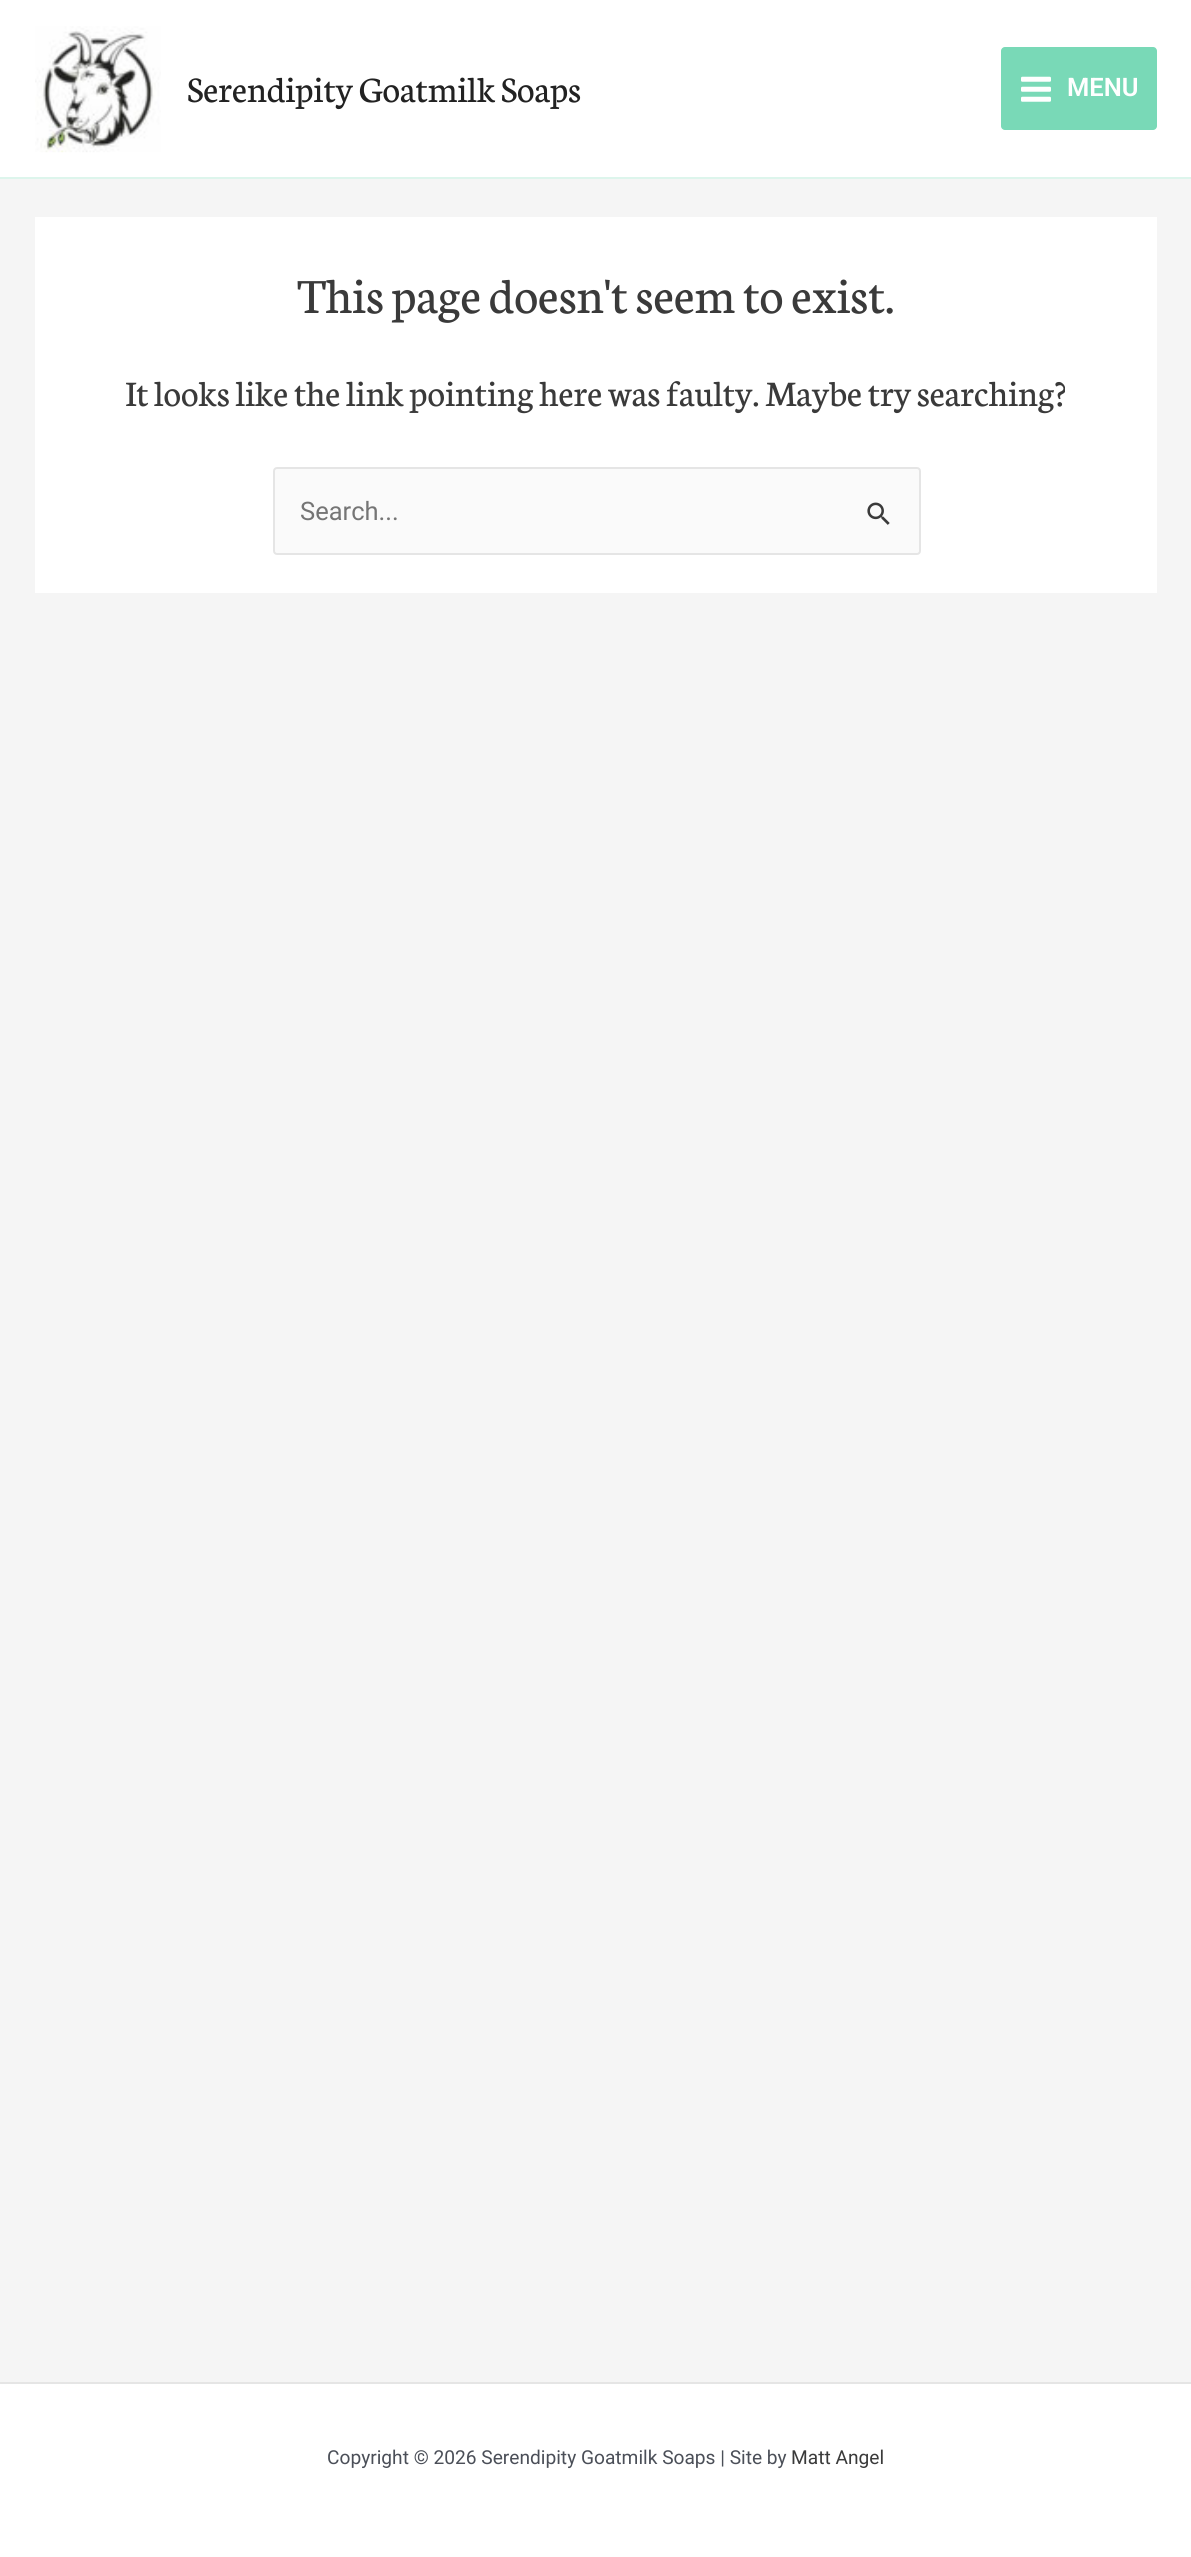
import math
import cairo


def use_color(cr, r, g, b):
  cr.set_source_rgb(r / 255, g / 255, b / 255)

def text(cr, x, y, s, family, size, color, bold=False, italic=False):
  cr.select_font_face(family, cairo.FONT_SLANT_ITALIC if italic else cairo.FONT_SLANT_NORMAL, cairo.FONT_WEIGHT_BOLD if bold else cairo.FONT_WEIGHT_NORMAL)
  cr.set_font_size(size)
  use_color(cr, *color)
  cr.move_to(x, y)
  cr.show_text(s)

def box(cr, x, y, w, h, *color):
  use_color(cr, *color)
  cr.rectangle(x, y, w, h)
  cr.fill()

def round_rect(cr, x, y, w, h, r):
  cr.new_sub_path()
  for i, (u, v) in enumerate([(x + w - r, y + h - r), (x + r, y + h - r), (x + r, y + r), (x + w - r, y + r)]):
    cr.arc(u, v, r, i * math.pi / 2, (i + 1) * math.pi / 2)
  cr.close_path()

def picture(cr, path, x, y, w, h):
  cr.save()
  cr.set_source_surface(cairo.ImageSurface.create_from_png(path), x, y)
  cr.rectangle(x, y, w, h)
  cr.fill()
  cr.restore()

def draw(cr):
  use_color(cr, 245, 245, 245)
  cr.paint()
  box(cr, 0, 0, 1191, 177, 255, 255, 255)
  box(cr, 0, 177, 1191, 2, 221, 245, 236)
  picture(cr, "img_01.png", 35, 26, 126, 127)
  use_color(cr, 121, 217, 183)
  round_rect(cr, 1001, 47, 156, 83, 4)
  cr.fill()
  picture(cr, "img_02.png", 1021, 76, 30, 26)
  box(cr, 35, 217, 1122, 376, 255, 255, 255)
  use_color(cr, 250, 250, 250)
  round_rect(cr, 274, 468, 646, 86, 3)
  cr.fill_preserve()
  use_color(cr, 229, 229, 229)
  cr.stroke()
  picture(cr, "img_03.png", 867, 502, 23, 23)
  box(cr, 0, 2384, 1191, 173, 255, 255, 255)
  box(cr, 0, 2382, 1191, 2, 229, 229, 229)
  text(cr, 187, 102, "Serendipity Goatmilk Soaps", "Neuton", 38.3, (34, 34, 34))
  text(cr, 1067, 96, "MENU", "Roboto SemiBold", 25.5, (255, 255, 255))
  text(cr, 297, 313, "This page doesn't seem to exist.", "Neuton", 52.5, (58, 58, 58))
  text(cr, 125, 406, "It looks like the link pointing here was faulty. Maybe try searching?", "Neuton", 38.3, (58, 58, 58))
  text(cr, 300, 520, "Search...", "Roboto", 25.5, (117, 117, 117))
  text(cr, 327, 2464, "Copyright © 2026 Serendipity Goatmilk Soaps | Site by", "Roboto", 19.15, (75, 79, 88))
  text(cr, 791, 2464, "Matt Angel", "Roboto", 19.15, (58, 58, 58))


surface = cairo.ImageSurface(cairo.FORMAT_RGB24, 1191, 2557)
cr = cairo.Context(surface)
options = cairo.FontOptions()
options.set_hint_metrics(cairo.HINT_METRICS_OFF)
options.set_hint_style(cairo.HINT_STYLE_NONE)
cr.set_font_options(options)
cr.set_miter_limit(4)
draw(cr)
surface.write_to_png("out.png")
